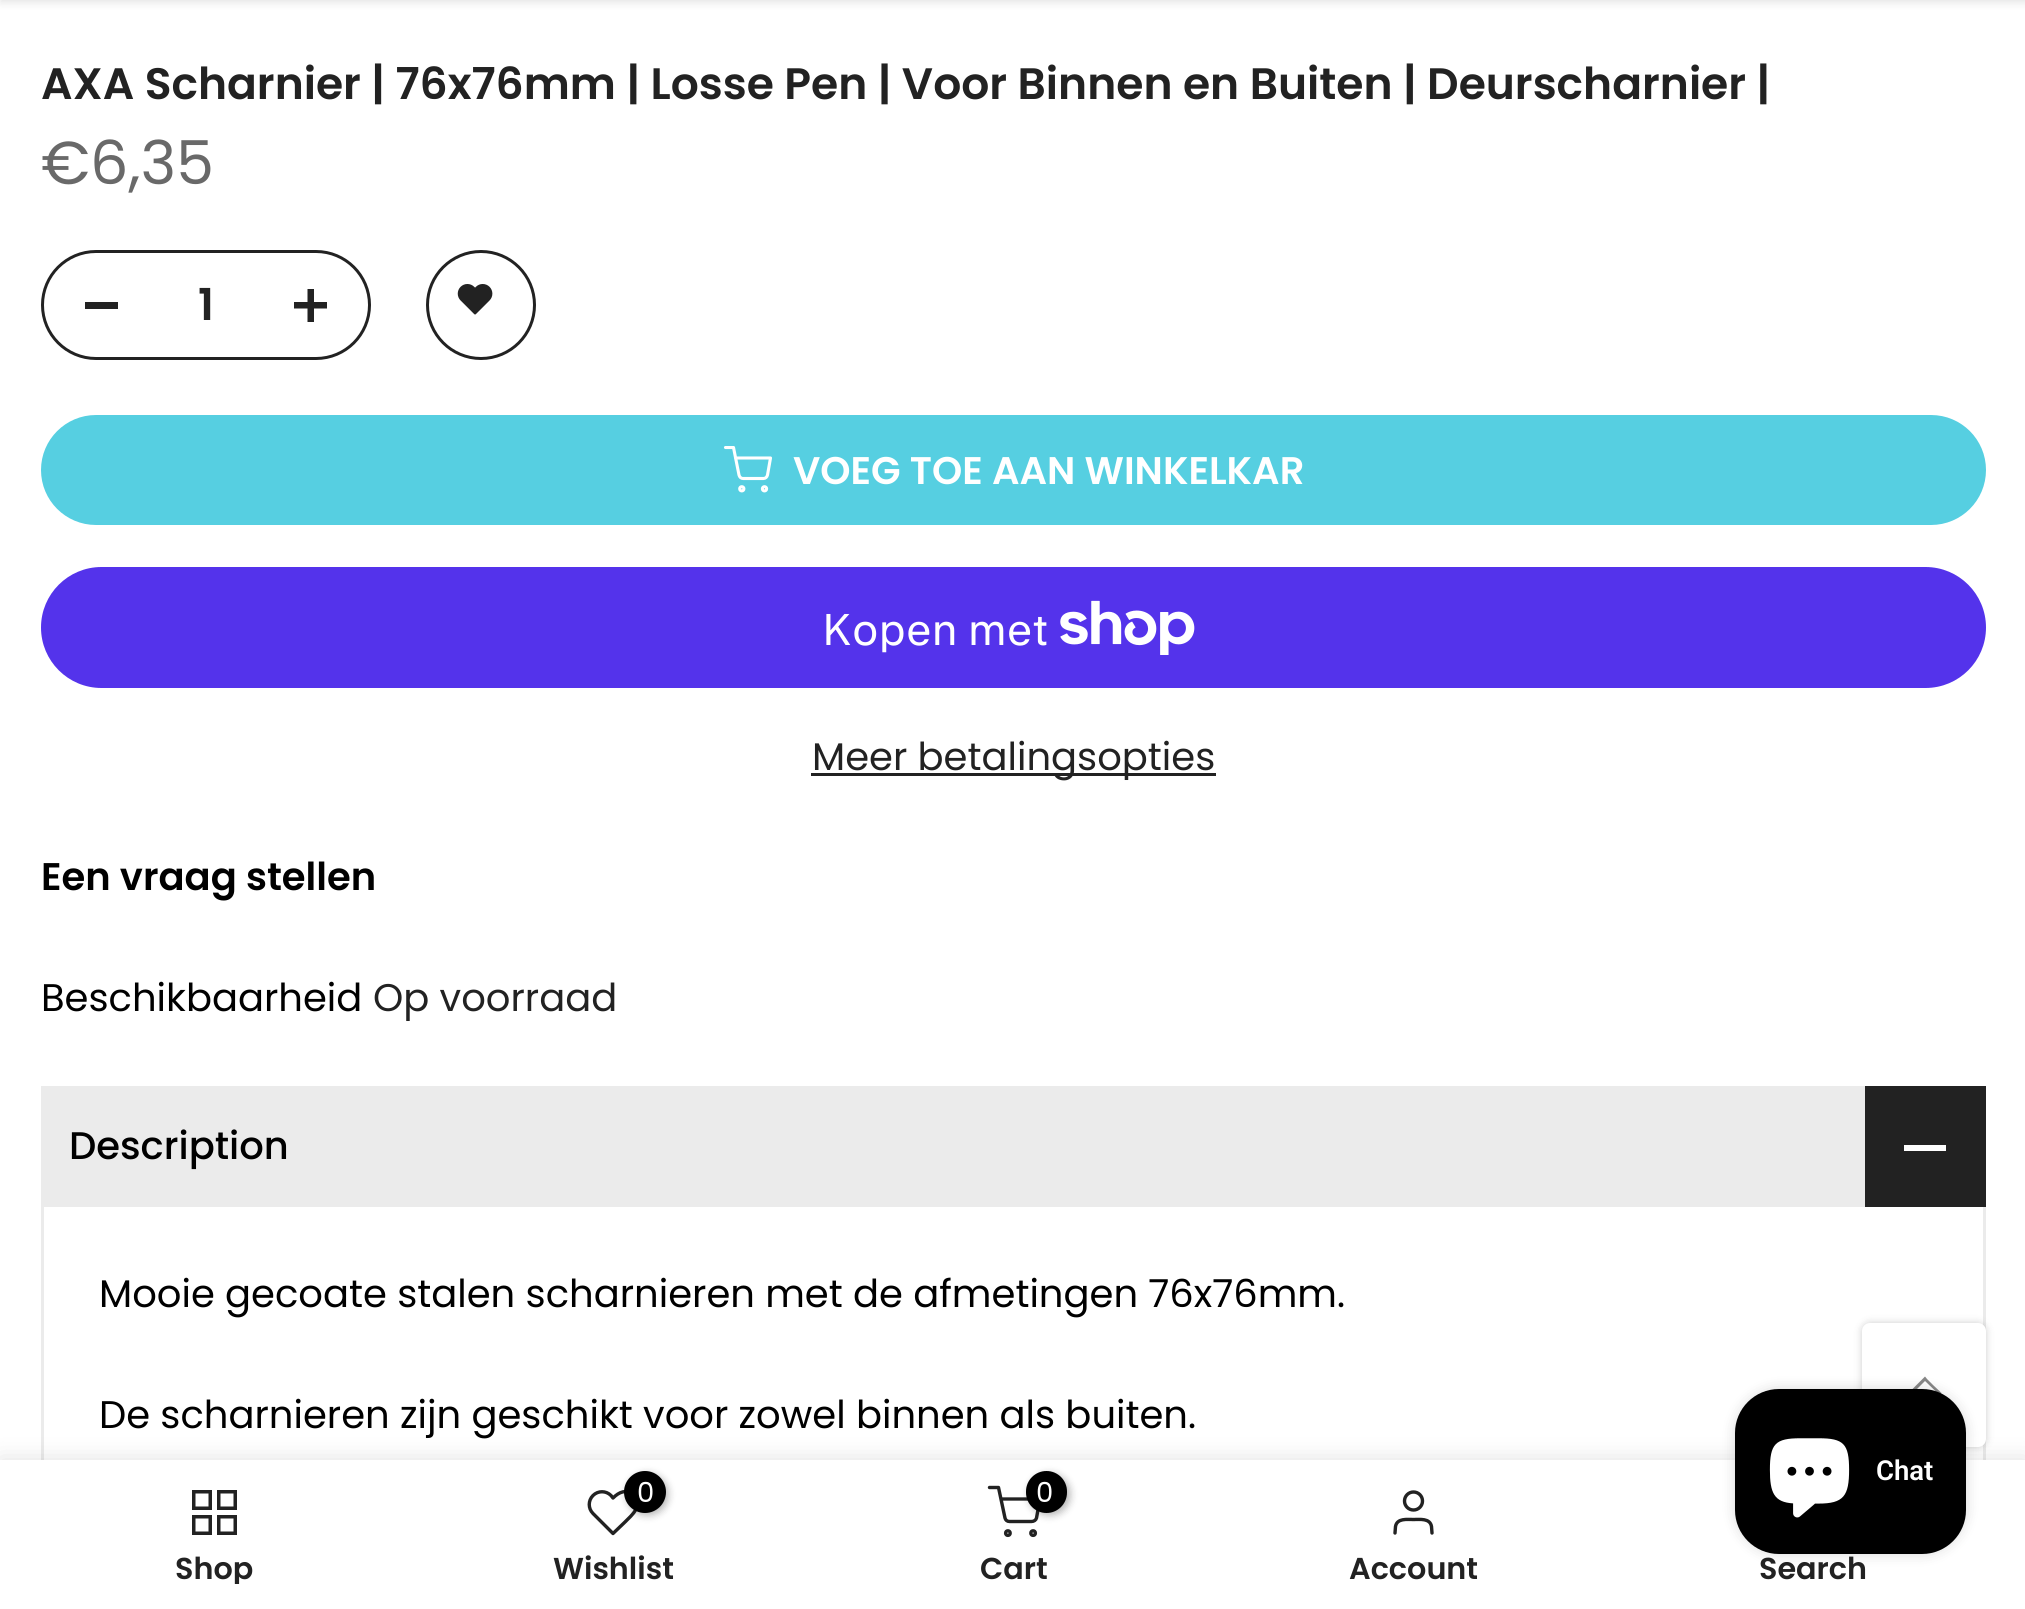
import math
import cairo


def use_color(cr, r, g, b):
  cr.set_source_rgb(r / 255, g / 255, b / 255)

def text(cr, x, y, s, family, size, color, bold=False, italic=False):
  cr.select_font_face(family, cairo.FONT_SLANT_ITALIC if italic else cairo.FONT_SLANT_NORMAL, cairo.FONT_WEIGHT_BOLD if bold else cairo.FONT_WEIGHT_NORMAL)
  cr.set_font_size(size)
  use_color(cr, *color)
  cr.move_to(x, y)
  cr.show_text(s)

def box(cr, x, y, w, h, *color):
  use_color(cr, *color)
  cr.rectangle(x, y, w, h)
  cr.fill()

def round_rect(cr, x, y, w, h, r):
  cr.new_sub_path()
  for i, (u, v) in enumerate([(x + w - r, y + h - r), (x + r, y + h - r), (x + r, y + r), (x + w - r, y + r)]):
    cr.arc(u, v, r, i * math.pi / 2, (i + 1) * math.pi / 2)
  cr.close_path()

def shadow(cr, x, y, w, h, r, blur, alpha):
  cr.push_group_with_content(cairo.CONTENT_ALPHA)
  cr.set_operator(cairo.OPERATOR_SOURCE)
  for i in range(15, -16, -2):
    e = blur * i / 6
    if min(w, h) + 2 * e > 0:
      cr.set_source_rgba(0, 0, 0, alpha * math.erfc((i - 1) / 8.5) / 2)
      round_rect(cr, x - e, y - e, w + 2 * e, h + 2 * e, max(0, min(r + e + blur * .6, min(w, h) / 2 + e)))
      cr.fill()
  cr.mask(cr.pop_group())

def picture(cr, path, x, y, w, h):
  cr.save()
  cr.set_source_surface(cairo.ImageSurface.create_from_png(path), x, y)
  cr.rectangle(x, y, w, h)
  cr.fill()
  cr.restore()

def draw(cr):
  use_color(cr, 255, 255, 255)
  cr.paint()
  use_color(cr, 0, 0, 0)
  shadow(cr, 0, -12, 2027, 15, 0, 4, 0.1)
  round_rect(cr, 42.5, 251.5, 327, 107, 53.5)
  use_color(cr, 34, 34, 34)
  cr.set_line_width(3)
  cr.stroke()
  box(cr, 85, 302, 33, 7, 34, 34, 34)
  cr.set_fill_rule(cairo.FILL_RULE_EVEN_ODD)
  cr.new_path()
  cr.move_to(314, 302)
  cr.line_to(327, 302)
  cr.line_to(327, 308.5)
  cr.line_to(314, 308.5)
  cr.line_to(314, 322)
  cr.line_to(307.5, 322)
  cr.line_to(307.5, 308.5)
  cr.line_to(294, 308.5)
  cr.line_to(294, 302)
  cr.line_to(307.5, 302)
  cr.line_to(307.5, 289)
  cr.line_to(314, 289)
  cr.close_path()
  cr.fill()
  cr.arc(481, 305, 53.5, 0, 2 * math.pi)
  cr.stroke()
  picture(cr, "img_01.png", 457, 284, 36, 31)
  use_color(cr, 86, 207, 225)
  round_rect(cr, 41, 415, 1945, 110, 55)
  cr.fill()
  cr.arc(741.8, 488.8, 2.1, 0, 2 * math.pi)
  use_color(cr, 255, 255, 255)
  cr.set_line_width(3.1)
  cr.stroke()
  cr.arc(764.5, 488.8, 2.1, 0, 2 * math.pi)
  cr.stroke()
  cr.save()
  cr.set_fill_rule(cairo.FILL_RULE_WINDING)
  cr.rectangle(723, 446, 50, 49)
  cr.clip()
  cr.new_path()
  cr.move_to(725.5, 447.5)
  cr.line_to(733.5, 447.5)
  cr.line_to(739, 475)
  cr.curve_to(739.5, 477, 741, 478.5, 743, 478.5)
  cr.line_to(763.5, 478.5)
  cr.curve_to(765.5, 478.5, 767, 477, 767.5, 475)
  cr.line_to(770.5, 458)
  cr.line_to(735.5, 458)
  cr.set_line_cap(cairo.LINE_CAP_ROUND)
  cr.set_line_join(cairo.LINE_JOIN_ROUND)
  cr.stroke()
  cr.restore()
  use_color(cr, 84, 51, 235)
  round_rect(cr, 41, 567, 1945, 121, 60.5)
  cr.fill()
  picture(cr, "img_02.png", 1060, 600, 135, 55)
  box(cr, 811, 773, 405, 3, 34, 34, 34)
  box(cr, 41, 1086, 1824, 121, 235, 235, 235)
  box(cr, 1865, 1086, 121, 121, 34, 34, 34)
  box(cr, 1904, 1145, 42, 6, 255, 255, 255)
  use_color(cr, 235, 235, 235)
  cr.set_fill_rule(cairo.FILL_RULE_WINDING)
  cr.new_path()
  cr.move_to(1986, 1207)
  cr.line_to(1986, 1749)
  cr.line_to(1983, 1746)
  cr.line_to(1983, 1207)
  cr.close_path()
  cr.fill()
  cr.new_path()
  cr.move_to(41, 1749)
  cr.line_to(41, 1207)
  cr.line_to(44, 1207)
  cr.line_to(44, 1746)
  cr.close_path()
  cr.fill()
  use_color(cr, 0, 0, 0)
  shadow(cr, 1862, 1323, 124, 124, 8, 4, 0.2)
  shadow(cr, 0, 1460, 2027, 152, 0, 12.5, 0.12)
  use_color(cr, 255, 255, 255)
  round_rect(cr, 1862, 1323, 124, 124, 8)
  cr.fill()
  use_color(cr, 135, 135, 135)
  cr.new_path()
  cr.move_to(1927, 1379)
  cr.line_to(1925, 1376.5)
  cr.line_to(1908.5, 1393)
  cr.line_to(1910.5, 1395.5)
  cr.line_to(1925, 1381)
  cr.line_to(1939.5, 1395)
  cr.line_to(1941.5, 1393)
  cr.line_to(1933, 1385)
  cr.close_path()
  cr.fill()
  box(cr, 0, 1460, 2025, 149, 255, 255, 255)
  use_color(cr, 0, 0, 0)
  shadow(cr, 1735, 1389, 231, 165, 44, 7, 0.15)
  use_color(cr, 0, 0, 0)
  round_rect(cr, 1735, 1389, 231, 165, 44)
  cr.fill()
  picture(cr, "img_03.png", 1769, 1438, 81, 80)
  cr.rectangle(193.75, 1491.75, 16.5, 16.5)
  use_color(cr, 34, 34, 34)
  cr.set_line_width(3.5)
  cr.stroke()
  cr.rectangle(218.75, 1491.75, 16.5, 16.5)
  cr.stroke()
  cr.rectangle(193.75, 1516.75, 16.5, 16.5)
  cr.stroke()
  cr.rectangle(218.75, 1516.75, 16.5, 16.5)
  cr.stroke()
  cr.new_path()
  cr.move_to(633.5, 1495.5)
  cr.curve_to(626.5, 1488.5, 619, 1492, 613, 1498)
  cr.line_to(611, 1495.5)
  cr.curve_to(606, 1490.5, 598, 1490.5, 593, 1495.5)
  cr.curve_to(588, 1500.5, 588, 1508.5, 593, 1513.5)
  cr.line_to(613, 1533.5)
  cr.line_to(625, 1522)
  cr.curve_to(632, 1515, 643.5, 1505.5, 633.5, 1495.5)
  cr.close_path()
  cr.set_line_width(3.4)
  cr.set_line_cap(cairo.LINE_CAP_ROUND)
  cr.set_line_join(cairo.LINE_JOIN_ROUND)
  cr.stroke()
  use_color(cr, 0, 0, 0)
  shadow(cr, 627, 1474, 41, 41, 20.5, 4, 0.3)
  use_color(cr, 0, 0, 0)
  cr.arc(645, 1492, 21, 0, 2 * math.pi)
  cr.fill()
  cr.new_path()
  cr.move_to(989.5, 1487.5)
  cr.line_to(998.5, 1487.5)
  cr.line_to(1005, 1518)
  cr.curve_to(1005.5, 1520, 1007, 1521.5, 1009.5, 1521.5)
  cr.line_to(1031.5, 1521.5)
  cr.curve_to(1034, 1521.5, 1036, 1520, 1036.5, 1518)
  cr.line_to(1040, 1499)
  cr.line_to(1001, 1499)
  use_color(cr, 34, 34, 34)
  cr.stroke()
  use_color(cr, 0, 0, 0)
  shadow(cr, 1029, 1474, 41, 41, 20.5, 4, 0.3)
  use_color(cr, 0, 0, 0)
  round_rect(cr, 1026, 1471, 41, 42, 20.5)
  cr.fill()
  cr.arc(1007.9, 1533.1, 2.3, 0, 2 * math.pi)
  use_color(cr, 34, 34, 34)
  cr.set_line_cap(cairo.LINE_CAP_BUTT)
  cr.set_line_join(cairo.LINE_JOIN_MITER)
  cr.stroke()
  cr.arc(1033.1, 1533.1, 2.3, 0, 2 * math.pi)
  cr.stroke()
  cr.arc(1413.5, 1501, 9, 0, 2 * math.pi)
  cr.stroke()
  cr.new_path()
  cr.move_to(1432, 1533)
  cr.line_to(1431.5, 1526.5)
  cr.curve_to(1430, 1518, 1420, 1519.5, 1413.5, 1519.5)
  cr.curve_to(1407, 1519.5, 1397, 1518, 1395.5, 1526.5)
  cr.line_to(1395, 1533)
  cr.set_line_cap(cairo.LINE_CAP_ROUND)
  cr.set_line_join(cairo.LINE_JOIN_ROUND)
  cr.stroke()
  text(cr, 41, 99, "AXA Scharnier | 76x76mm | Losse Pen | Voor Binnen en Buiten | Deurscharnier |", "Poppins SemiBold", 44, (34, 34, 34))
  text(cr, 41, 184, "€6,35", "Poppins", 60.5, (105, 105, 105))
  text(cr, 198, 320, "1", "Poppins SemiBold", 44, (34, 34, 34))
  text(cr, 793, 484, "VOEG TOE AAN WINKELKAR", "Poppins SemiBold", 38.5, (255, 255, 255))
  text(cr, 822, 645, "Kopen met", "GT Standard", 44, (255, 255, 255))
  text(cr, 812, 770, "Meer betalingsopties", "Poppins", 38.5, (34, 34, 34))
  text(cr, 41, 890, "Een vraag stellen", "Poppins SemiBold", 38.5, (0, 0, 0))
  text(cr, 41, 1011, "Beschikbaarheid", "Poppins", 38.5, (0, 0, 0))
  text(cr, 373, 1011, "Op voorraad", "Poppins", 38.5, (34, 34, 34))
  text(cr, 69, 1159, "Description", "Poppins Medium", 38.5, (0, 0, 0))
  text(cr, 99, 1307, "Mooie gecoate stalen scharnieren met de afmetingen 76x76mm.", "Poppins", 38.5, (0, 0, 0))
  text(cr, 99, 1428, "De scharnieren zijn geschikt voor zowel binnen als buiten.", "Poppins", 38.5, (0, 0, 0))
  text(cr, 1876, 1480, "Chat", "Roboto SemiBold", 27.5, (255, 255, 255))
  cr.save()
  cr.rectangle(41, 1554, 344, 30)
  cr.clip()
  text(cr, 175, 1579, "Shop", "Poppins SemiBold", 30.25, (34, 34, 34))
  cr.restore()
  text(cr, 637, 1502, "0", "Poppins", 27.5, (255, 255, 255))
  text(cr, 553, 1579, "Wishlist", "Poppins SemiBold", 30.25, (34, 34, 34))
  text(cr, 1036, 1502, "0", "Poppins", 27.5, (255, 255, 255))
  text(cr, 980, 1579, "Cart", "Poppins SemiBold", 30.25, (34, 34, 34))
  text(cr, 1349, 1579, "Account", "Poppins SemiBold", 30.25, (34, 34, 34))
  text(cr, 1759, 1579, "Search", "Poppins SemiBold", 30.25, (34, 34, 34))


surface = cairo.ImageSurface(cairo.FORMAT_RGB24, 2025, 1609)
cr = cairo.Context(surface)
options = cairo.FontOptions()
options.set_hint_metrics(cairo.HINT_METRICS_OFF)
options.set_hint_style(cairo.HINT_STYLE_NONE)
cr.set_font_options(options)
cr.set_miter_limit(4)
draw(cr)
surface.write_to_png("out.png")
